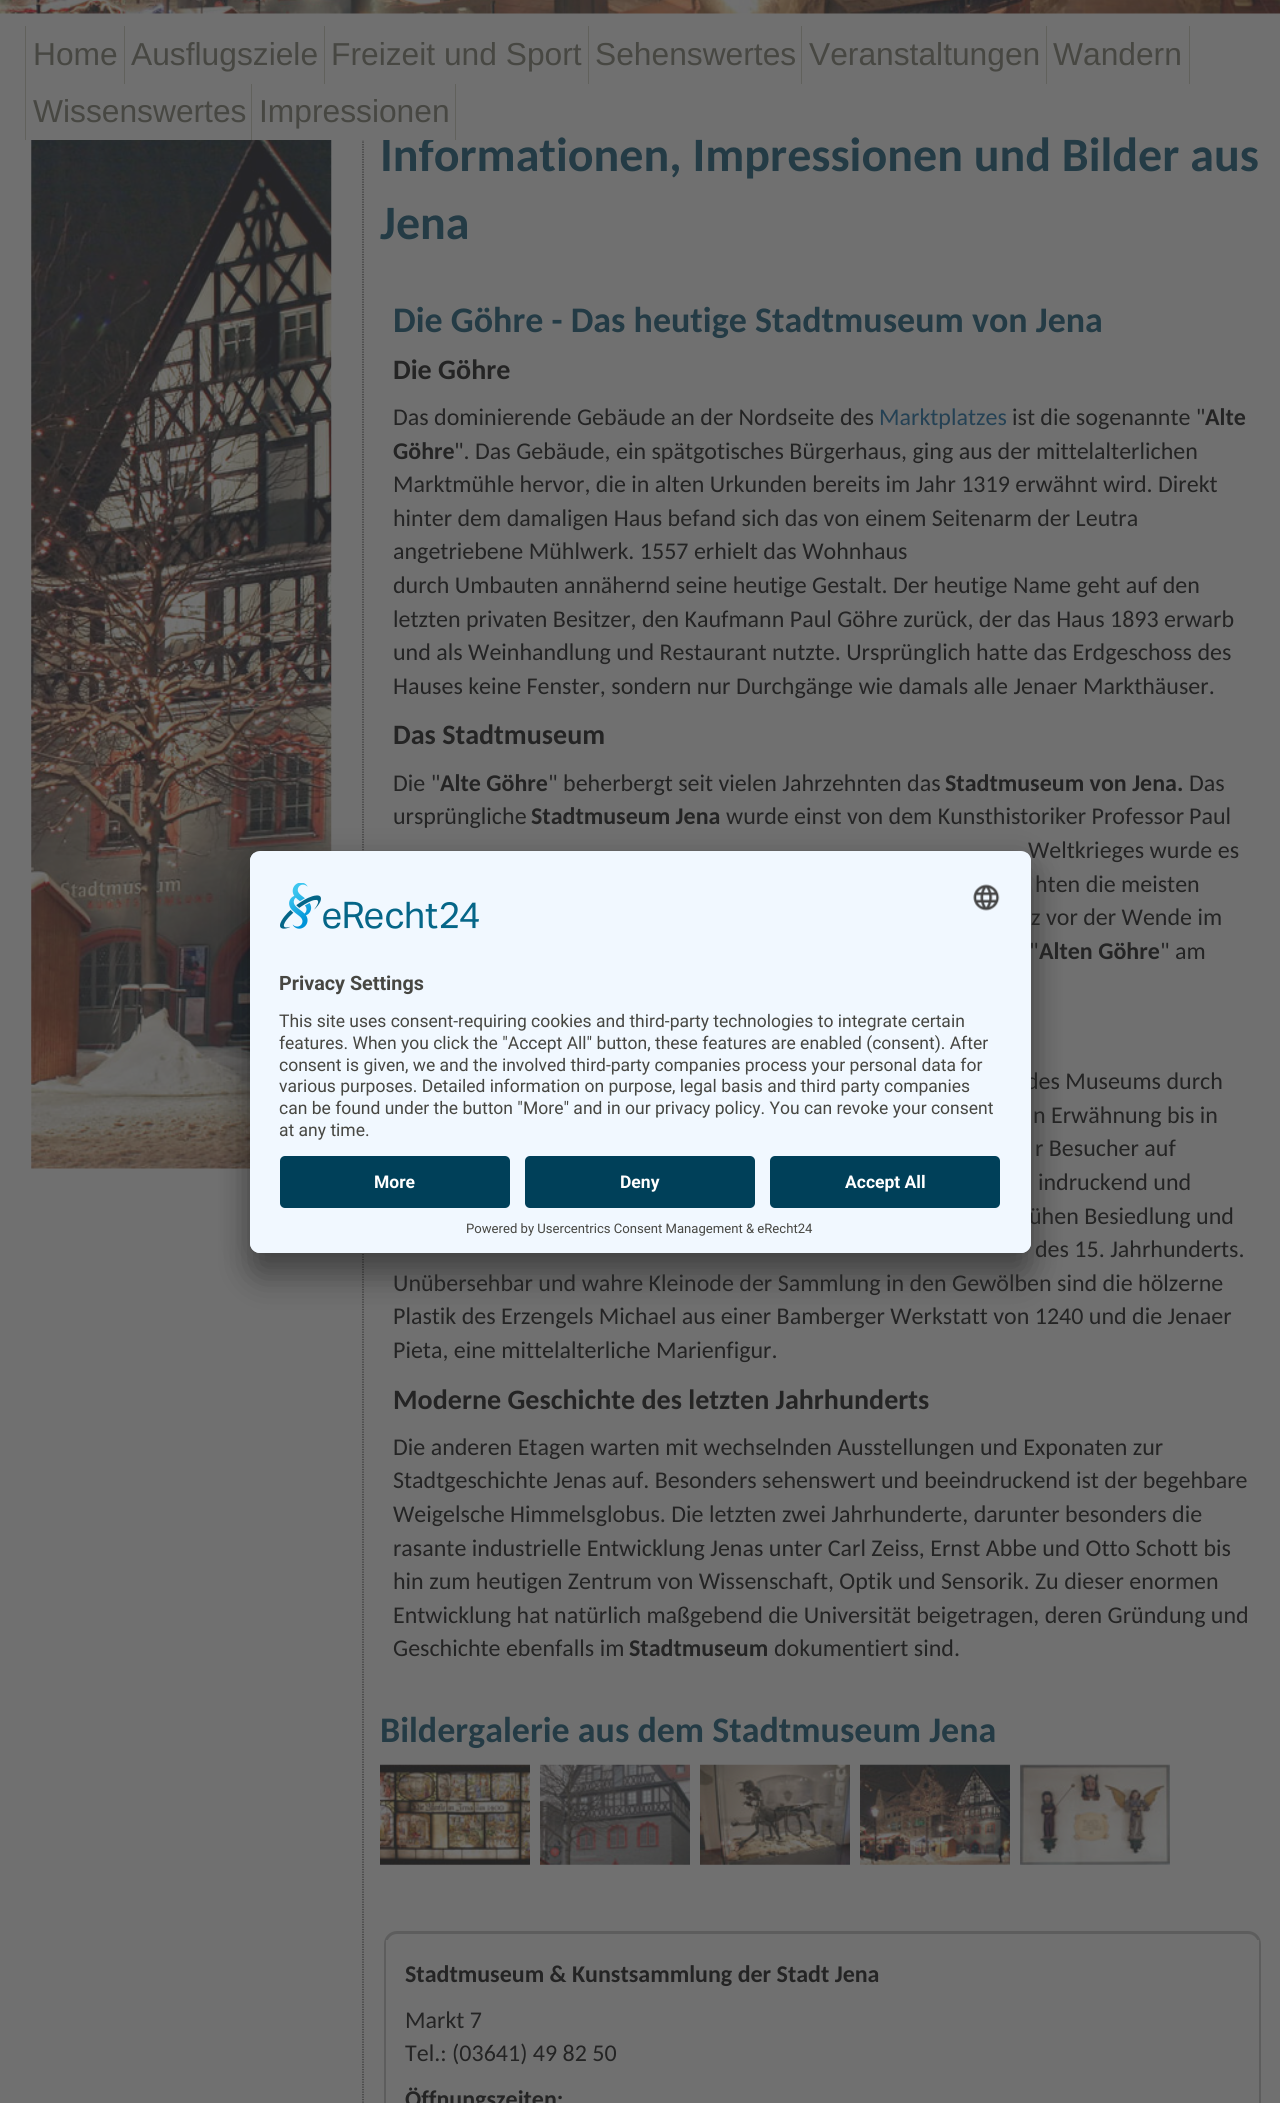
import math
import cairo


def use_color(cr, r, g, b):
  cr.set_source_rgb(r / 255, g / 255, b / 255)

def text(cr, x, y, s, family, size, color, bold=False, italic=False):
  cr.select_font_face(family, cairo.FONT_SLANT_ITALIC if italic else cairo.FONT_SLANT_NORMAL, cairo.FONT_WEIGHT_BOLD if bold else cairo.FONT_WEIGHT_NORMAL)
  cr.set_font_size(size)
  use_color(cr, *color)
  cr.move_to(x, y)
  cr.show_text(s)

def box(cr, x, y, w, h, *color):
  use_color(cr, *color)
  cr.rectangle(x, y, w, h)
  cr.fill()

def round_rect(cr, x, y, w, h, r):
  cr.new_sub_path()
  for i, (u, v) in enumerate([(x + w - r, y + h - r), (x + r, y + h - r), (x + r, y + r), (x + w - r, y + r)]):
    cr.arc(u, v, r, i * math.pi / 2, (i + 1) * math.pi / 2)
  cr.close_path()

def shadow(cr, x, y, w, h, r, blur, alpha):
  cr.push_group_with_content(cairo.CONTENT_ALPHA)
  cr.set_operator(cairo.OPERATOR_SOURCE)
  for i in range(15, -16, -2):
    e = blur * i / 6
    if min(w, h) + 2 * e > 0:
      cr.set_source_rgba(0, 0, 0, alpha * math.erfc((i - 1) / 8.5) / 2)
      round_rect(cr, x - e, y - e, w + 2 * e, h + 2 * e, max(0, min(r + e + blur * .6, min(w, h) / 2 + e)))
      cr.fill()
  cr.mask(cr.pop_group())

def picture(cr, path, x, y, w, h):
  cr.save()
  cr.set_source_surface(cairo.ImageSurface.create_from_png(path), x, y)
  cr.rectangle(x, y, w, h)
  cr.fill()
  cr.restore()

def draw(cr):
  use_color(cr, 112, 112, 112)
  cr.paint()
  picture(cr, "img_01.png", 0, 0, 1280, 14)
  box(cr, 25, 26, 1, 114, 97, 97, 92)
  box(cr, 124, 26, 1, 58, 97, 97, 92)
  box(cr, 324, 26, 1, 58, 97, 97, 92)
  cr.new_path()
  cr.move_to(363, 64)
  cr.line_to(363, 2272.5)
  use_color(cr, 51, 51, 51)
  cr.set_line_width(1.2)
  cr.set_dash([1.25, 1.25])
  cr.stroke()
  box(cr, 362, 64, 2, 19, 112, 112, 112)
  box(cr, 588, 26, 1, 58, 97, 97, 92)
  box(cr, 801, 26, 1, 58, 97, 97, 92)
  box(cr, 1046, 26, 1, 58, 97, 97, 92)
  box(cr, 1189, 26, 1, 58, 97, 97, 92)
  box(cr, 251, 84, 1, 56, 97, 97, 92)
  picture(cr, "img_02.png", 31, 140, 301, 1029)
  picture(cr, "img_03.png", 380, 1764, 150, 101)
  picture(cr, "img_04.png", 540, 1764, 150, 101)
  picture(cr, "img_05.png", 700, 1764, 150, 101)
  picture(cr, "img_06.png", 860, 1764, 150, 101)
  picture(cr, "img_07.png", 1020, 1764, 150, 101)
  round_rect(cr, 385.5, 1932.5, 874, 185, 11.5)
  use_color(cr, 93, 93, 93)
  cr.set_line_width(3)
  cr.set_dash([])
  cr.stroke()
  box(cr, 386, 1940, 873, 163, 112, 112, 112)
  use_color(cr, 0, 0, 0)
  shadow(cr, 250, 876, 781, 402, 10, 17.5, 0.3)
  shadow(cr, 250, 858, 781, 401, 10, 16, 0.22)
  text(cr, 33, 65, "Home", "Liberation Sans", 31.75, (71, 71, 66))
  text(cr, 131, 65, "Ausflugsziele", "Liberation Sans", 31.75, (71, 71, 66))
  text(cr, 331, 65, "Freizeit und Sport", "Liberation Sans", 31.75, (71, 71, 66))
  text(cr, 595, 65, "Sehenswertes", "Liberation Sans", 31.75, (71, 71, 66))
  text(cr, 809, 65, "Veranstaltungen", "Liberation Sans", 31.75, (71, 71, 66))
  text(cr, 1053, 65, "Wandern", "Liberation Sans", 31.75, (71, 71, 66))
  text(cr, 33, 122, "Wissenswertes", "Liberation Sans", 31.75, (71, 71, 66))
  text(cr, 380, 171, "Informationen, Impressionen und Bilder aus", "Carlito", 48, (36, 59, 69), bold=True)
  box(cr, 362, 84, 72, 56, 112, 112, 112)
  text(cr, 259, 122, "Impressionen", "Liberation Sans", 31.75, (71, 71, 66))
  box(cr, 455, 84, 1, 56, 97, 97, 92)
  text(cr, 380, 239, "Jena", "Carlito", 48, (36, 59, 69), bold=True)
  text(cr, 393, 332, "Die Göhre - Das heutige Stadtmuseum von Jena", "Carlito", 36, (36, 59, 69), bold=True)
  text(cr, 393, 379, "Die Göhre", "Carlito", 28.1, (36, 36, 36), bold=True)
  text(cr, 393, 425, "Das dominierende Gebäude an der Nordseite des", "Carlito", 24, (36, 36, 36))
  text(cr, 879, 425, "Marktplatzes", "Carlito", 24, (36, 65, 84))
  text(cr, 1012, 425, "ist die sogenannte \"", "Carlito", 24, (36, 36, 36))
  text(cr, 1205, 425, "Alte", "Carlito", 24, (36, 36, 36), bold=True)
  text(cr, 393, 459, "Göhre", "Carlito", 24, (36, 36, 36), bold=True)
  text(cr, 454, 459, "\". Das Gebäude, ein spätgotisches Bürgerhaus, ging aus der mittelalterlichen", "Carlito", 24, (36, 36, 36))
  text(cr, 393, 492, "Marktmühle hervor, die in alten Urkunden bereits im Jahr 1319 erwähnt wird. Direkt", "Carlito", 24, (36, 36, 36))
  text(cr, 393, 526, "hinter dem damaligen Haus befand sich das von einem Seitenarm der Leutra", "Carlito", 24, (36, 36, 36))
  text(cr, 393, 559, "angetriebene Mühlwerk. 1557 erhielt das Wohnhaus", "Carlito", 24, (36, 36, 36))
  text(cr, 393, 593, "durch Umbauten annähernd seine heutige Gestalt. Der heutige Name geht auf den", "Carlito", 24, (36, 36, 36))
  text(cr, 393, 627, "letzten privaten Besitzer, den Kaufmann Paul Göhre zurück, der das Haus 1893 erwarb", "Carlito", 24, (36, 36, 36))
  text(cr, 393, 660, "und als Weinhandlung und Restaurant nutzte. Ursprünglich hatte das Erdgeschoss des", "Carlito", 24, (36, 36, 36))
  text(cr, 393, 694, "Hauses keine Fenster, sondern nur Durchgänge wie damals alle Jenaer Markthäuser.", "Carlito", 24, (36, 36, 36))
  text(cr, 393, 744, "Das Stadtmuseum", "Carlito", 28.1, (36, 36, 36), bold=True)
  text(cr, 393, 791, "Die \"", "Carlito", 24, (36, 36, 36))
  text(cr, 440, 791, "Alte Göhre", "Carlito", 24, (36, 36, 36), bold=True)
  text(cr, 548, 791, "\" beherbergt seit vielen Jahrzehnten das", "Carlito", 24, (36, 36, 36))
  text(cr, 945, 791, "Stadtmuseum von Jena.", "Carlito", 24, (36, 36, 36), bold=True)
  text(cr, 1189, 791, "Das", "Carlito", 24, (36, 36, 36))
  text(cr, 393, 824, "ursprüngliche", "Carlito", 24, (36, 36, 36))
  text(cr, 531, 824, "Stadtmuseum Jena", "Carlito", 24, (36, 36, 36), bold=True)
  text(cr, 726, 824, "wurde einst von dem Kunsthistoriker Professor", "Carlito", 24, (36, 36, 36))
  text(cr, 1189, 824, "Paul", "Carlito", 24, (36, 36, 36))
  text(cr, 1028, 858, "Weltkrieges wurde es", "Carlito", 24, (36, 36, 36))
  text(cr, 1035, 892, "hten die meisten", "Carlito", 24, (36, 36, 36))
  text(cr, 1031, 925, "z vor der Wende im", "Carlito", 24, (36, 36, 36))
  text(cr, 1029, 959, "\"", "Carlito", 24, (36, 36, 36))
  text(cr, 1039, 959, "Alten Göhre", "Carlito", 24, (36, 36, 36), bold=True)
  text(cr, 1160, 959, "\" am", "Carlito", 24, (36, 36, 36))
  text(cr, 1026, 1089, "des Museums durch", "Carlito", 24, (36, 36, 36))
  text(cr, 1033, 1123, "n Erwähnung bis in", "Carlito", 24, (36, 36, 36))
  text(cr, 1035, 1156, "r Besucher auf", "Carlito", 24, (36, 36, 36))
  text(cr, 1038, 1190, "indruckend und", "Carlito", 24, (36, 36, 36))
  text(cr, 1029, 1224, "ühen Besiedlung und", "Carlito", 24, (36, 36, 36))
  text(cr, 1035, 1257, "des 15. Jahrhunderts.", "Carlito", 24, (36, 36, 36))
  text(cr, 393, 1291, "Unübersehbar und wahre Kleinode der Sammlung in den Gewölben sind die hölzerne", "Carlito", 24, (36, 36, 36))
  text(cr, 393, 1324, "Plastik des Erzengels Michael aus einer Bamberger Werkstatt von 1240 und die Jenaer", "Carlito", 24, (36, 36, 36))
  text(cr, 393, 1358, "Pieta, eine mittelalterliche Marienfigur.", "Carlito", 24, (36, 36, 36))
  text(cr, 393, 1409, "Moderne Geschichte des letzten Jahrhunderts", "Carlito", 28.1, (36, 36, 36), bold=True)
  text(cr, 393, 1455, "Die anderen Etagen warten mit wechselnden Ausstellungen und Exponaten zur", "Carlito", 24, (36, 36, 36))
  text(cr, 393, 1488, "Stadtgeschichte Jenas auf. Besonders sehenswert und beeindruckend ist der begehbare", "Carlito", 24, (36, 36, 36))
  text(cr, 393, 1522, "Weigelsche Himmelsglobus. Die letzten zwei Jahrhunderte, darunter besonders die", "Carlito", 24, (36, 36, 36))
  text(cr, 393, 1556, "rasante industrielle Entwicklung Jenas unter Carl Zeiss, Ernst Abbe und Otto Schott bis", "Carlito", 24, (36, 36, 36))
  text(cr, 393, 1589, "hin zum heutigen Zentrum von Wissenschaft, Optik und Sensorik. Zu dieser enormen", "Carlito", 24, (36, 36, 36))
  text(cr, 393, 1623, "Entwicklung hat natürlich maßgebend die Universität beigetragen, deren Gründung und", "Carlito", 24, (36, 36, 36))
  text(cr, 393, 1656, "Geschichte ebenfalls im", "Carlito", 24, (36, 36, 36))
  text(cr, 629, 1656, "Stadtmuseum", "Carlito", 24, (36, 36, 36), bold=True)
  text(cr, 774, 1656, "dokumentiert sind.", "Carlito", 24, (36, 36, 36))
  text(cr, 380, 1742, "Bildergalerie aus dem Stadtmuseum Jena", "Carlito", 36, (36, 59, 69), bold=True)
  text(cr, 405, 1982, "Stadtmuseum & Kunstsammlung der Stadt Jena", "Carlito", 24, (36, 36, 36), bold=True)
  text(cr, 405, 2028, "Markt 7", "Carlito", 24, (36, 36, 36))
  text(cr, 405, 2061, "Tel.: (03641) 49 82 50", "Carlito", 24, (36, 36, 36))
  text(cr, 405, 2107, "Öffnungszeiten:", "Carlito", 24, (36, 36, 36), bold=True)
  use_color(cr, 241, 248, 255)
  round_rect(cr, 250, 851, 781, 402, 10)
  cr.fill()
  cr.save()
  round_rect(cr, 250, 851, 781, 402, 10)
  cr.clip()
  cr.new_path()
  cr.move_to(260, 851)
  cr.line_to(1021, 851)
  cr.curve_to(1026.5, 851, 1031, 855.5, 1031, 861)
  cr.line_to(1031, 1146)
  cr.line_to(250, 1146)
  cr.line_to(250, 861)
  cr.curve_to(250, 855.5, 254.5, 851, 260, 851)
  cr.close_path()
  cr.clip()
  box(cr, 250, 853, 781, 293, 241, 248, 255)
  cr.restore()
  picture(cr, "img_08.png", 280, 883, 199, 46)
  picture(cr, "img_09.png", 973, 884, 27, 27)
  text(cr, 279, 990, "Privacy Settings", "Roboto", 19.75, (71, 71, 66), bold=True)
  text(cr, 279, 1027, "This site uses consent-requiring cookies and third-party technologies to integrate certain", "Roboto", 17.5, (71, 71, 66))
  text(cr, 279, 1049, "features. When you click the \"Accept All\" button, these features are enabled (consent). After", "Roboto", 17.5, (71, 71, 66))
  text(cr, 279, 1071, "consent is given, we and the involved third-party companies process your personal data for", "Roboto", 17.5, (71, 71, 66))
  text(cr, 279, 1092, "various purposes. Detailed information on purpose, legal basis and third party companies", "Roboto", 17.5, (71, 71, 66))
  text(cr, 279, 1114, "can be found under the button \"More\" and in our privacy policy. You can revoke your consent", "Roboto", 17.5, (71, 71, 66))
  text(cr, 279, 1136, "at any time.", "Roboto", 17.5, (71, 71, 66))
  use_color(cr, 241, 248, 255)
  cr.new_path()
  cr.move_to(250, 1146)
  cr.line_to(1031, 1146)
  cr.line_to(1031, 1243)
  cr.curve_to(1031, 1248.5, 1026.5, 1253, 1021, 1253)
  cr.line_to(260, 1253)
  cr.curve_to(254.5, 1253, 250, 1248.5, 250, 1243)
  cr.close_path()
  cr.fill()
  use_color(cr, 0, 64, 89)
  round_rect(cr, 280, 1156, 230, 52, 5)
  cr.fill()
  text(cr, 374, 1188, "More", "Roboto", 17.5, (255, 255, 255), bold=True)
  use_color(cr, 0, 64, 89)
  round_rect(cr, 525, 1156, 230, 52, 5)
  cr.fill()
  text(cr, 620, 1188, "Deny", "Roboto", 17.5, (255, 255, 255), bold=True)
  use_color(cr, 0, 64, 89)
  round_rect(cr, 770, 1156, 230, 52, 5)
  cr.fill()
  text(cr, 845, 1188, "Accept All", "Roboto", 17.5, (255, 255, 255), bold=True)
  text(cr, 466, 1233, "Powered by Usercentrics Consent Management & eRecht24", "Roboto", 13.1, (71, 71, 66))


surface = cairo.ImageSurface(cairo.FORMAT_RGB24, 1280, 2103)
cr = cairo.Context(surface)
options = cairo.FontOptions()
options.set_hint_metrics(cairo.HINT_METRICS_OFF)
options.set_hint_style(cairo.HINT_STYLE_NONE)
cr.set_font_options(options)
cr.set_miter_limit(4)
draw(cr)
surface.write_to_png("out.png")
